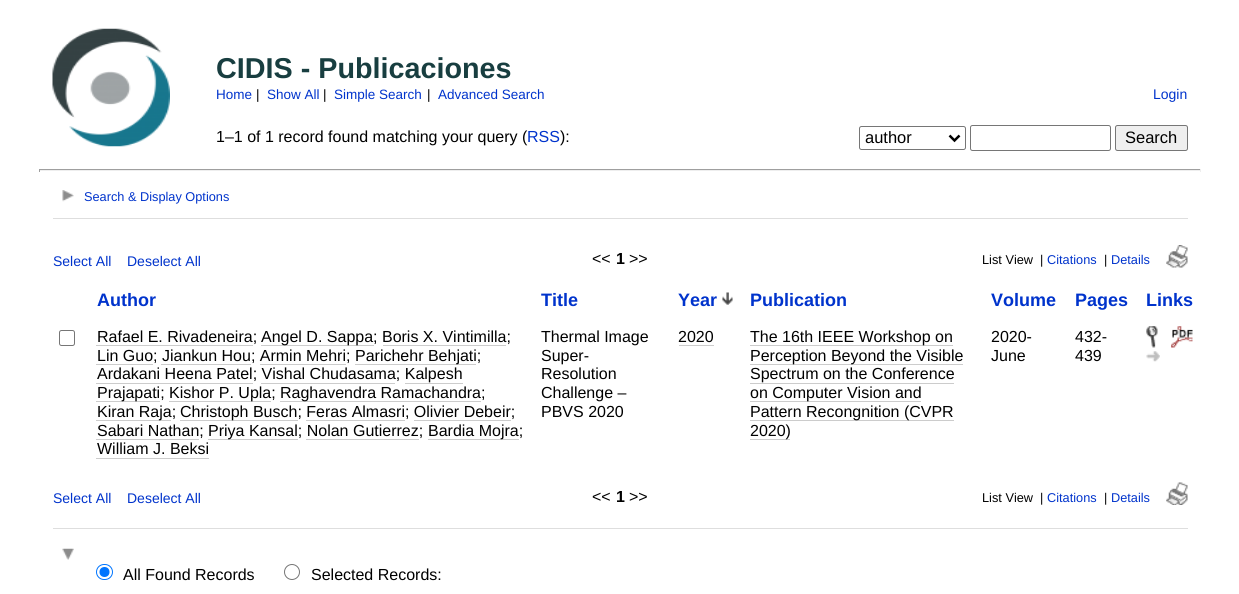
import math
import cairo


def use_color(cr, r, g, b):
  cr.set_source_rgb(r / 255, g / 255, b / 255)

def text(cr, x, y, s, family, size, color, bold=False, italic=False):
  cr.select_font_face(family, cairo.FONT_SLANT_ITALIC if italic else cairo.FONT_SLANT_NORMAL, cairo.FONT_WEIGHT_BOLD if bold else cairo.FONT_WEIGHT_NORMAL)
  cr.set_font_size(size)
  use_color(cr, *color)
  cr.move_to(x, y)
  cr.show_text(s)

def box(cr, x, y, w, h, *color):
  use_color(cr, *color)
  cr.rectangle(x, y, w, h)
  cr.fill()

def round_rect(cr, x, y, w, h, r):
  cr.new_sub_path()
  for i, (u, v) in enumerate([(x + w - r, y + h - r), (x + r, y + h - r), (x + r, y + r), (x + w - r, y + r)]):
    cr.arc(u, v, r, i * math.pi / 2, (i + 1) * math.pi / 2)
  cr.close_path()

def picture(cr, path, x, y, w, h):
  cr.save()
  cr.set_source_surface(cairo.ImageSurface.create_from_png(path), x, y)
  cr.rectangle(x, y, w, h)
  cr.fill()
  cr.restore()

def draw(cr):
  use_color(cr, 255, 255, 255)
  cr.paint()
  picture(cr, "img_01.png", 52, 28, 118, 119)
  round_rect(cr, 859.5, 126.5, 106, 23, 2)
  use_color(cr, 118, 118, 118)
  cr.set_line_width(1)
  cr.stroke()
  cr.new_path()
  cr.move_to(949.5, 135.5)
  cr.line_to(954.5, 140.5)
  cr.line_to(959.5, 135.5)
  use_color(cr, 0, 0, 0)
  cr.set_line_width(2.5)
  cr.stroke()
  round_rect(cr, 970.5, 125.5, 140, 25, 2)
  use_color(cr, 118, 118, 118)
  cr.set_line_width(1)
  cr.stroke()
  use_color(cr, 239, 239, 239)
  round_rect(cr, 1115.5, 125.5, 72, 25, 2)
  cr.fill_preserve()
  use_color(cr, 118, 118, 118)
  cr.stroke()
  box(cr, 39, 169, 1162, 1, 159, 159, 159)
  box(cr, 1200, 169, 1, 3, 238, 238, 238)
  box(cr, 39, 170, 1162, 1, 238, 238, 238)
  box(cr, 39, 169, 1, 3, 159, 159, 159)
  picture(cr, "img_02.png", 62, 190, 12, 12)
  box(cr, 53, 218, 1135, 1, 222, 222, 222)
  picture(cr, "img_03.png", 1166, 245, 22, 23)
  picture(cr, "img_04.png", 722, 292, 11, 13)
  round_rect(cr, 59.5, 330.5, 15, 15, 2)
  use_color(cr, 118, 118, 118)
  cr.stroke()
  box(cr, 96, 345, 157, 1, 204, 204, 204)
  box(cr, 261, 345, 113, 1, 204, 204, 204)
  box(cr, 96, 364, 57, 1, 204, 204, 204)
  box(cr, 161, 364, 90, 1, 204, 204, 204)
  box(cr, 260, 364, 86, 1, 204, 204, 204)
  box(cr, 355, 364, 121, 1, 204, 204, 204)
  box(cr, 96, 383, 157, 1, 204, 204, 204)
  box(cr, 261, 383, 134, 1, 204, 204, 204)
  box(cr, 405, 383, 58, 1, 204, 204, 204)
  box(cr, 96, 401, 64, 1, 204, 204, 204)
  box(cr, 169, 401, 102, 1, 204, 204, 204)
  box(cr, 280, 401, 201, 1, 204, 204, 204)
  box(cr, 96, 420, 75, 1, 204, 204, 204)
  box(cr, 180, 420, 118, 1, 204, 204, 204)
  box(cr, 96, 439, 103, 1, 204, 204, 204)
  box(cr, 208, 439, 90, 1, 204, 204, 204)
  box(cr, 428, 439, 91, 1, 204, 204, 204)
  box(cr, 96, 458, 113, 1, 204, 204, 204)
  box(cr, 679, 345, 35, 1, 204, 204, 204)
  box(cr, 750, 345, 203, 1, 204, 204, 204)
  box(cr, 750, 364, 213, 1, 204, 204, 204)
  box(cr, 750, 383, 204, 1, 204, 204, 204)
  box(cr, 750, 401, 171, 1, 204, 204, 204)
  box(cr, 750, 420, 204, 1, 204, 204, 204)
  box(cr, 750, 439, 40, 1, 204, 204, 204)
  picture(cr, "img_05.png", 1146, 326, 12, 22)
  picture(cr, "img_06.png", 1171, 326, 22, 22)
  picture(cr, "img_07.png", 1146, 351, 14, 11)
  picture(cr, "img_08.png", 1166, 482, 22, 23)
  box(cr, 53, 528, 1135, 1, 222, 222, 222)
  picture(cr, "img_09.png", 62, 548, 12, 12)
  round_rect(cr, 96.5, 564.5, 16, 15, 7.5)
  use_color(cr, 0, 117, 255)
  cr.stroke()
  cr.arc(104.5, 572, 5, 0, 2 * math.pi)
  cr.fill()
  cr.arc(292, 572, 7.5, 0, 2 * math.pi)
  use_color(cr, 118, 118, 118)
  cr.stroke()
  text(cr, 216, 78, "CIDIS - Publicaciones", "Liberation Sans", 28.75, (24, 62, 64), bold=True)
  text(cr, 216, 99, "Home", "Liberation Sans", 13.5, (0, 51, 204))
  text(cr, 256, 99, "|", "Liberation Sans", 13.5, (0, 0, 0))
  text(cr, 267, 99, "Show All", "Liberation Sans", 13.5, (0, 51, 204))
  text(cr, 323, 99, "|", "Liberation Sans", 13.5, (0, 0, 0))
  text(cr, 334, 99, "Simple Search", "Liberation Sans", 13.5, (0, 51, 204))
  text(cr, 427, 99, "|", "Liberation Sans", 13.5, (0, 0, 0))
  text(cr, 438, 99, "Advanced Search", "Liberation Sans", 13.5, (0, 51, 204))
  text(cr, 1153, 99, "Login", "Liberation Sans", 14, (0, 51, 204))
  text(cr, 865, 143, "author", "Liberation Sans", 16.5, (0, 0, 0))
  text(cr, 1125, 143, "Search", "Liberation Sans", 16.5, (0, 0, 0))
  text(cr, 216, 142, "1–1 of 1 record found matching your query (", "Liberation Sans", 16, (0, 0, 0))
  text(cr, 527, 142, "RSS", "Liberation Sans", 16, (0, 51, 204))
  text(cr, 560, 142, "):", "Liberation Sans", 16, (0, 0, 0))
  text(cr, 84, 201, "Search & Display Options", "Liberation Sans", 12.75, (0, 51, 204))
  text(cr, 53, 266, "Select All", "Liberation Sans", 14, (0, 51, 204))
  text(cr, 127, 266, "Deselect All", "Liberation Sans", 14, (0, 51, 204))
  text(cr, 592, 264, "<<", "Liberation Sans", 16, (0, 0, 0))
  text(cr, 616, 264, "1", "Liberation Sans", 16, (0, 0, 0), bold=True)
  text(cr, 629, 264, ">>", "Liberation Sans", 16, (0, 0, 0))
  text(cr, 982, 264, "List View", "Liberation Sans", 12.75, (0, 0, 0))
  text(cr, 1040, 264, "|", "Liberation Sans", 12.75, (0, 0, 0))
  text(cr, 1047, 264, "Citations", "Liberation Sans", 12.75, (0, 51, 204))
  text(cr, 1104, 264, "|", "Liberation Sans", 12.75, (0, 0, 0))
  text(cr, 1111, 264, "Details", "Liberation Sans", 12.75, (0, 51, 204))
  text(cr, 97, 306, "Author", "Liberation Sans", 18, (0, 51, 204), bold=True)
  text(cr, 541, 306, "Title", "Liberation Sans", 18, (0, 51, 204), bold=True)
  text(cr, 678, 306, "Year", "Liberation Sans", 18, (0, 51, 204), bold=True)
  text(cr, 750, 306, "Publication", "Liberation Sans", 18, (0, 51, 204), bold=True)
  text(cr, 991, 306, "Volume", "Liberation Sans", 18, (0, 51, 204), bold=True)
  text(cr, 1075, 306, "Pages", "Liberation Sans", 18, (0, 51, 204), bold=True)
  text(cr, 1146, 306, "Links", "Liberation Sans", 18, (0, 51, 204), bold=True)
  text(cr, 97, 342, "Rafael E. Rivadeneira;", "Liberation Sans", 16, (0, 0, 0))
  text(cr, 261, 342, "Angel D. Sappa; Boris X. Vintimilla;", "Liberation Sans", 16, (0, 0, 0))
  box(cr, 383, 345, 123, 1, 204, 204, 204)
  text(cr, 97, 361, "Lin Guo; Jiankun Hou; Armin Mehri;", "Liberation Sans", 16, (0, 0, 0))
  text(cr, 355, 361, "Parichehr Behjati;", "Liberation Sans", 16, (0, 0, 0))
  text(cr, 97, 379, "Ardakani Heena Patel; Vishal Chudasama; Kalpesh", "Liberation Sans", 16, (0, 0, 0))
  text(cr, 97, 398, "Prajapati;", "Liberation Sans", 16, (0, 0, 0))
  text(cr, 169, 398, "Kishor P. Upla;", "Liberation Sans", 16, (0, 0, 0))
  text(cr, 280, 398, "Raghavendra Ramachandra;", "Liberation Sans", 16, (0, 0, 0))
  text(cr, 97, 417, "Kiran Raja;", "Liberation Sans", 16, (0, 0, 0))
  text(cr, 180, 417, "Christoph Busch; Feras Almasri; Olivier Debeir;", "Liberation Sans", 16, (0, 0, 0))
  box(cr, 306, 420, 99, 1, 204, 204, 204)
  box(cr, 414, 420, 97, 1, 204, 204, 204)
  text(cr, 97, 436, "Sabari Nathan;", "Liberation Sans", 16, (0, 0, 0))
  text(cr, 208, 436, "Priya Kansal; Nolan Gutierrez;", "Liberation Sans", 16, (0, 0, 0))
  box(cr, 306, 439, 113, 1, 204, 204, 204)
  text(cr, 428, 436, "Bardia Mojra;", "Liberation Sans", 16, (0, 0, 0))
  text(cr, 97, 454, "William J. Beksi", "Liberation Sans", 16, (0, 0, 0))
  text(cr, 541, 342, "Thermal Image", "Liberation Sans", 16, (0, 0, 0))
  text(cr, 541, 361, "Super-", "Liberation Sans", 16, (0, 0, 0))
  text(cr, 541, 379, "Resolution", "Liberation Sans", 16, (0, 0, 0))
  text(cr, 541, 398, "Challenge –", "Liberation Sans", 16, (0, 0, 0))
  text(cr, 541, 417, "PBVS 2020", "Liberation Sans", 16, (0, 0, 0))
  text(cr, 678, 342, "2020", "Liberation Sans", 16, (0, 0, 0))
  text(cr, 750, 342, "The 16th IEEE Workshop on", "Liberation Sans", 16, (0, 0, 0))
  text(cr, 750, 361, "Perception Beyond the Visible", "Liberation Sans", 16, (0, 0, 0))
  text(cr, 750, 379, "Spectrum on the Conference", "Liberation Sans", 16, (0, 0, 0))
  text(cr, 750, 398, "on Computer Vision and", "Liberation Sans", 16, (0, 0, 0))
  text(cr, 750, 417, "Pattern Recongnition (CVPR", "Liberation Sans", 16, (0, 0, 0))
  text(cr, 750, 436, "2020)", "Liberation Sans", 16, (0, 0, 0))
  text(cr, 991, 342, "2020-", "Liberation Sans", 16, (0, 0, 0))
  text(cr, 991, 361, "June", "Liberation Sans", 16, (0, 0, 0))
  text(cr, 1075, 342, "432-", "Liberation Sans", 16, (0, 0, 0))
  text(cr, 1075, 361, "439", "Liberation Sans", 16, (0, 0, 0))
  text(cr, 53, 503, "Select All", "Liberation Sans", 14, (0, 51, 204))
  text(cr, 127, 503, "Deselect All", "Liberation Sans", 14, (0, 51, 204))
  text(cr, 592, 502, "<<", "Liberation Sans", 16, (0, 0, 0))
  text(cr, 616, 502, "1", "Liberation Sans", 16, (0, 0, 0), bold=True)
  text(cr, 629, 502, ">>", "Liberation Sans", 16, (0, 0, 0))
  text(cr, 982, 502, "List View", "Liberation Sans", 12.75, (0, 0, 0))
  text(cr, 1040, 502, "|", "Liberation Sans", 12.75, (0, 0, 0))
  text(cr, 1047, 502, "Citations", "Liberation Sans", 12.75, (0, 51, 204))
  text(cr, 1104, 502, "|", "Liberation Sans", 12.75, (0, 0, 0))
  text(cr, 1111, 502, "Details", "Liberation Sans", 12.75, (0, 51, 204))
  text(cr, 123, 580, "All Found Records", "Liberation Sans", 16, (0, 0, 0))
  text(cr, 311, 580, "Selected Records:", "Liberation Sans", 16, (0, 0, 0))


surface = cairo.ImageSurface(cairo.FORMAT_RGB24, 1239, 594)
cr = cairo.Context(surface)
options = cairo.FontOptions()
options.set_hint_metrics(cairo.HINT_METRICS_OFF)
options.set_hint_style(cairo.HINT_STYLE_NONE)
cr.set_font_options(options)
cr.set_miter_limit(4)
draw(cr)
surface.write_to_png("out.png")
